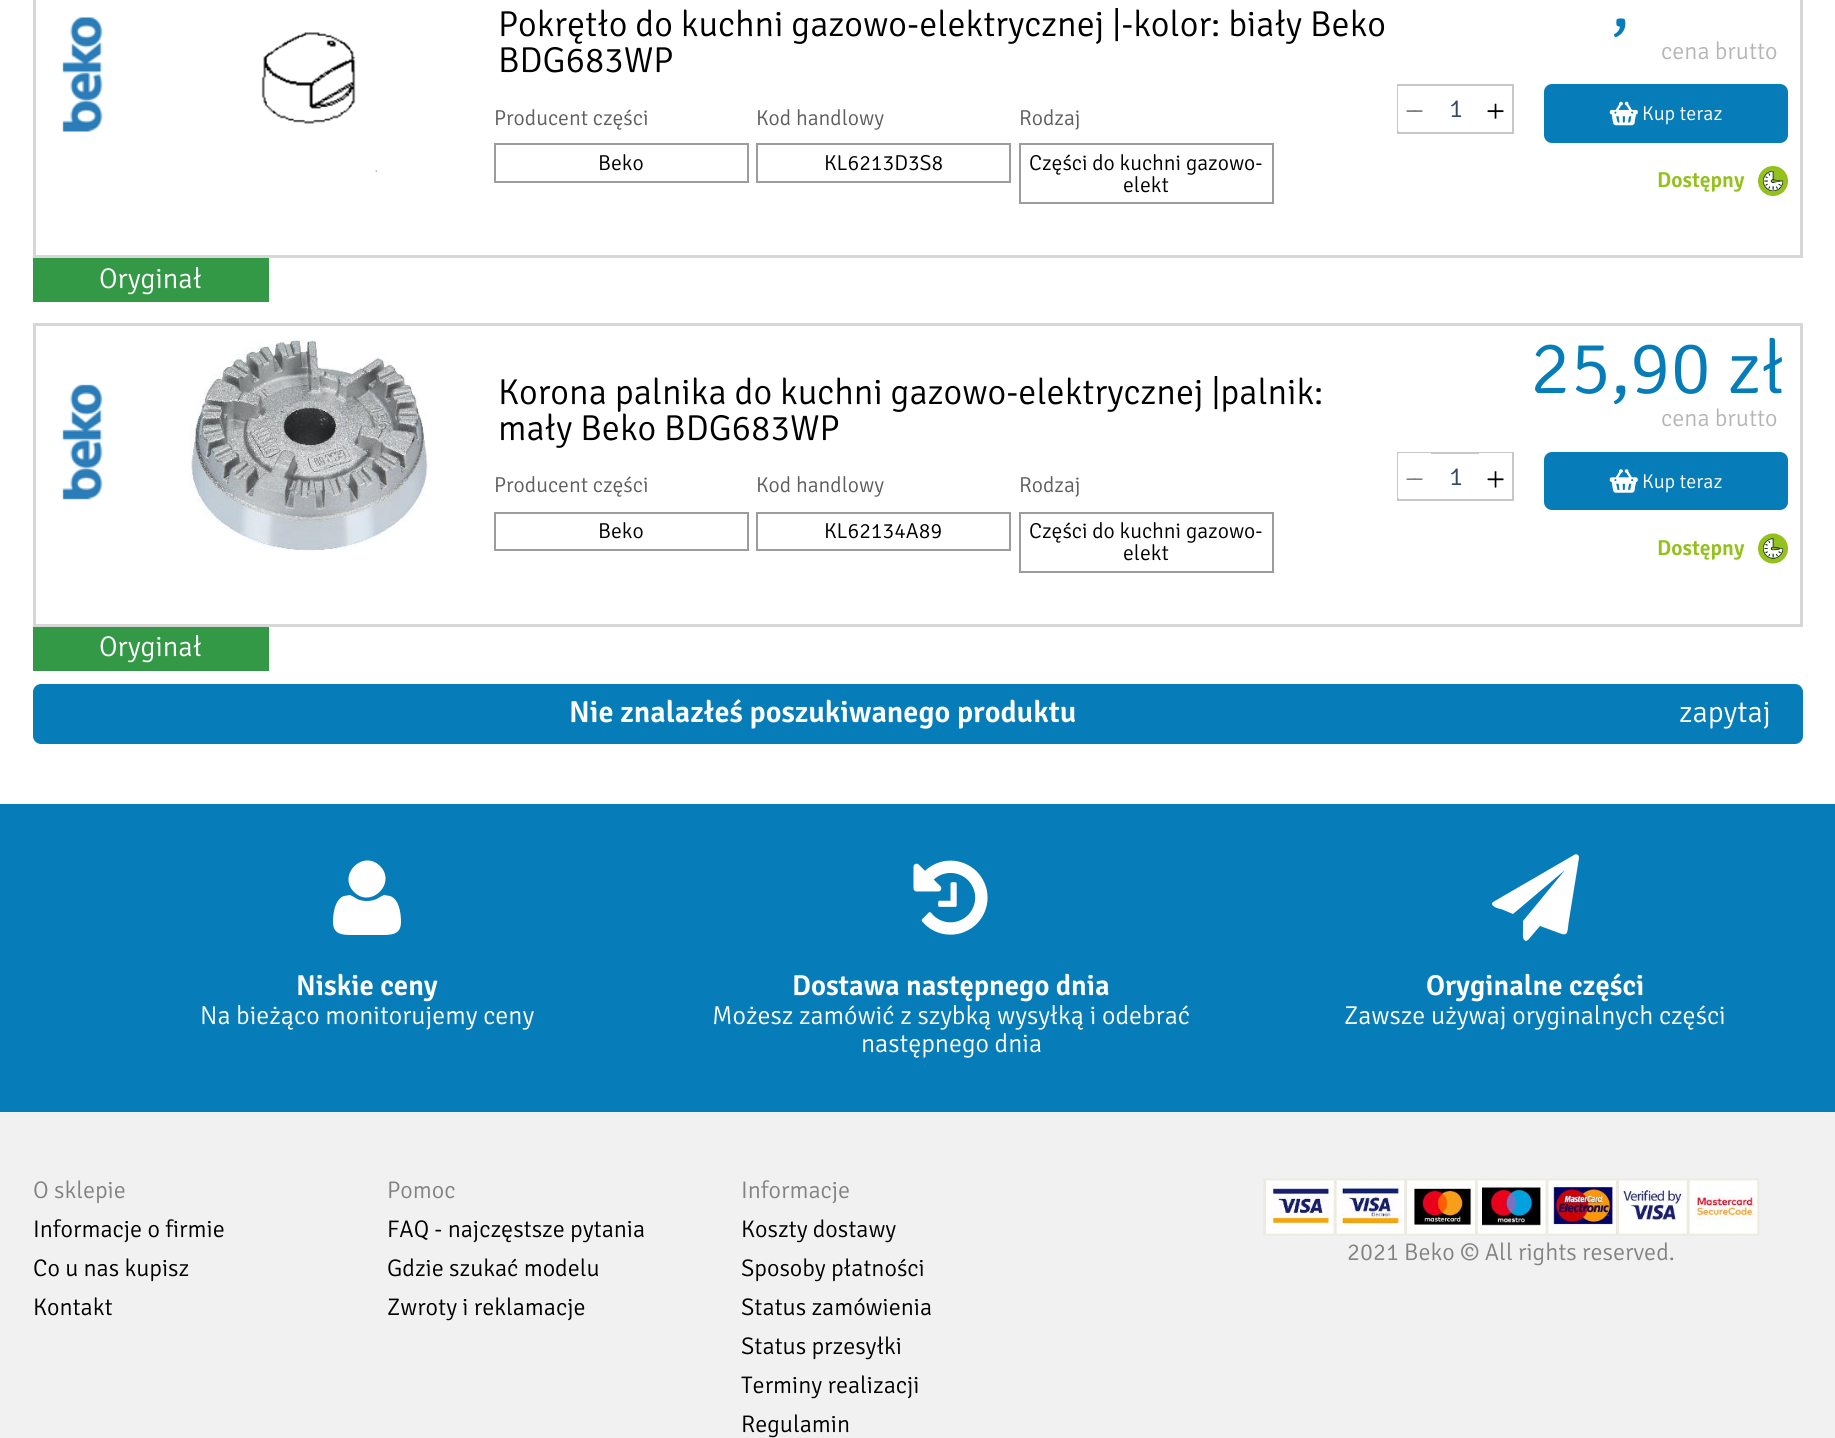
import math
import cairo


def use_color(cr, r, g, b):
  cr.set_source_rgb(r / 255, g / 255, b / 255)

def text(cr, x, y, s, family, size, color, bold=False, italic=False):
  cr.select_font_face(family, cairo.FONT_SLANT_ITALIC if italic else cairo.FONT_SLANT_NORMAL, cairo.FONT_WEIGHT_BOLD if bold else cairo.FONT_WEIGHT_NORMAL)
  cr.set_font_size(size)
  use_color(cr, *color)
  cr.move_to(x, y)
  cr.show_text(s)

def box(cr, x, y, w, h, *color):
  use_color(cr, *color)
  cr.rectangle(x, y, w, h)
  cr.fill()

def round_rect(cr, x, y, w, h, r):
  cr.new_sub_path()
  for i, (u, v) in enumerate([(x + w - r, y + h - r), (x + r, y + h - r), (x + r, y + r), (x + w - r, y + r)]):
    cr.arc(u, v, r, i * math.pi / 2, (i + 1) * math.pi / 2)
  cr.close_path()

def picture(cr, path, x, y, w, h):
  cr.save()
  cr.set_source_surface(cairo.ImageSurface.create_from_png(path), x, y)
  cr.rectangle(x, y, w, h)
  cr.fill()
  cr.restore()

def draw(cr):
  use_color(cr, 255, 255, 255)
  cr.paint()
  cr.rectangle(34.5, -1.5, 1767, 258)
  use_color(cr, 215, 215, 215)
  cr.set_line_width(3)
  cr.stroke()
  picture(cr, "img_01.png", 62, 17, 41, 115)
  picture(cr, "img_02.png", 261, 32, 116, 140)
  cr.rectangle(495, 144, 253, 38)
  use_color(cr, 156, 156, 156)
  cr.set_line_width(2)
  cr.stroke()
  cr.rectangle(757, 144, 253, 38)
  cr.stroke()
  cr.rectangle(1020, 144, 253, 59)
  cr.stroke()
  cr.rectangle(1398, 85, 115, 48)
  use_color(cr, 199, 199, 199)
  cr.stroke()
  box(cr, 1398, 86, 1, 45, 255, 255, 255)
  picture(cr, "img_03.png", 1406, 110, 17, 2)
  picture(cr, "img_04.png", 1487, 103, 17, 16)
  use_color(cr, 6, 124, 185)
  round_rect(cr, 1545, 85, 242, 57, 7)
  cr.fill_preserve()
  cr.stroke()
  picture(cr, "img_05.png", 1609, 101, 29, 25)
  picture(cr, "img_06.png", 1758, 166, 30, 30)
  box(cr, 33, 258, 236, 44, 52, 153, 71)
  cr.rectangle(34.5, 324.5, 1767, 301)
  use_color(cr, 215, 215, 215)
  cr.set_line_width(3)
  cr.stroke()
  picture(cr, "img_07.png", 62, 384, 41, 116)
  picture(cr, "img_08.png", 189, 340, 239, 212)
  cr.rectangle(495, 513, 253, 37)
  use_color(cr, 156, 156, 156)
  cr.set_line_width(2)
  cr.stroke()
  cr.rectangle(757, 513, 253, 37)
  cr.stroke()
  cr.rectangle(1020, 513, 253, 59)
  cr.stroke()
  cr.rectangle(1398, 453, 115, 47)
  use_color(cr, 199, 199, 199)
  cr.stroke()
  box(cr, 1398, 453, 33, 45, 255, 255, 255)
  picture(cr, "img_09.png", 1406, 478, 17, 2)
  box(cr, 1479, 453, 33, 1, 255, 255, 255)
  picture(cr, "img_10.png", 1487, 471, 17, 17)
  use_color(cr, 6, 124, 185)
  round_rect(cr, 1545, 453, 242, 56, 7)
  cr.fill_preserve()
  cr.stroke()
  picture(cr, "img_11.png", 1609, 469, 29, 24)
  picture(cr, "img_12.png", 1758, 533, 30, 31)
  box(cr, 33, 627, 236, 44, 52, 153, 71)
  use_color(cr, 6, 124, 185)
  round_rect(cr, 33, 684, 1770, 60, 8)
  cr.fill()
  box(cr, 0, 1112, 1835, 326, 241, 241, 241)
  box(cr, 0, 804, 1835, 308, 6, 124, 185)
  use_color(cr, 255, 255, 255)
  cr.new_path()
  cr.move_to(401, 922)
  cr.curve_to(401, 935, 391, 935, 381, 935)
  cr.line_to(353, 935)
  cr.curve_to(343, 935, 333, 935, 333, 922)
  cr.curve_to(333, 913, 335, 899, 344, 896)
  cr.line_to(350, 895)
  cr.line_to(354, 897)
  cr.curve_to(358, 900, 362, 901, 367, 901)
  cr.curve_to(371, 901, 376, 900, 380, 897)
  cr.line_to(384, 895)
  cr.line_to(390, 896)
  cr.curve_to(399, 899, 401, 913, 401, 922)
  cr.close_path()
  cr.move_to(380, 866)
  cr.curve_to(397, 883, 371, 909, 354, 892)
  cr.curve_to(337, 875, 363, 849, 380, 866)
  cr.close_path()
  cr.fill()
  picture(cr, "img_13.png", 913, 860, 75, 75)
  cr.new_path()
  cr.move_to(1578, 855)
  cr.curve_to(1579, 856, 1579, 857, 1579, 858)
  cr.line_to(1569, 920)
  cr.curve_to(1567, 932, 1569, 937, 1559, 933)
  cr.line_to(1540, 926)
  cr.line_to(1528, 940)
  cr.line_to(1526, 941)
  cr.curve_to(1522, 940, 1523, 934, 1523, 932)
  cr.line_to(1523, 921)
  cr.line_to(1565, 870)
  cr.line_to(1513, 914)
  cr.line_to(1501, 909)
  cr.curve_to(1499, 909, 1489, 906, 1493, 902)
  cr.line_to(1574, 855)
  cr.curve_to(1575, 854, 1577, 854, 1578, 855)
  cr.close_path()
  cr.fill()
  picture(cr, "img_14.png", 1263, 1178, 497, 58)
  text(cr, 498, 36, "Pokrętło do kuchni gazowo-elektrycznej |-kolor: biały Beko", "Signika Light", 36, (0, 0, 0))
  text(cr, 498, 72, "BDG683WP", "Signika Light", 36, (0, 0, 0))
  text(cr, 494, 125, "Producent części", "Signika Light", 21.6, (95, 94, 94))
  text(cr, 598, 170, "Beko", "Signika Light", 21.6, (0, 0, 0))
  text(cr, 756, 125, "Kod handlowy", "Signika Light", 21.6, (95, 94, 94))
  text(cr, 824, 170, "KL6213D3S8", "Signika Light", 21.6, (0, 0, 0))
  text(cr, 1019, 125, "Rodzaj", "Signika Light", 21.6, (95, 94, 94))
  text(cr, 1029, 170, "Części do kuchni gazowo-", "Signika Light", 21.6, (0, 0, 0))
  text(cr, 1123, 192, "elekt", "Signika Light", 21.6, (0, 0, 0))
  text(cr, 1611, 26, ",", "Signika Light", 75, (6, 124, 185))
  text(cr, 1661, 59, "cena brutto", "Signika Light", 24, (182, 182, 182))
  text(cr, 1449, 117, "1", "Signika Light", 25.9, (52, 73, 94))
  text(cr, 1642, 120, "Kup teraz", "Signika Light", 20, (255, 255, 255))
  text(cr, 1657, 187, "Dostępny", "Signika SemiBold", 21.6, (149, 193, 31))
  text(cr, 99, 288, "Oryginał", "Signika Light", 28.5, (255, 255, 255))
  text(cr, 498, 404, "Korona palnika do kuchni gazowo-elektrycznej |palnik:", "Signika Light", 36, (0, 0, 0))
  text(cr, 498, 440, "mały Beko BDG683WP", "Signika Light", 36, (0, 0, 0))
  text(cr, 494, 492, "Producent części", "Signika Light", 21.6, (95, 94, 94))
  text(cr, 598, 538, "Beko", "Signika Light", 21.6, (0, 0, 0))
  text(cr, 756, 492, "Kod handlowy", "Signika Light", 21.6, (95, 94, 94))
  text(cr, 824, 538, "KL62134A89", "Signika Light", 21.6, (0, 0, 0))
  text(cr, 1019, 492, "Rodzaj", "Signika Light", 21.6, (95, 94, 94))
  text(cr, 1029, 538, "Części do kuchni gazowo-", "Signika Light", 21.6, (0, 0, 0))
  text(cr, 1123, 560, "elekt", "Signika Light", 21.6, (0, 0, 0))
  text(cr, 1530, 393, "25,90 zł", "Signika Light", 75, (6, 124, 185))
  text(cr, 1661, 426, "cena brutto", "Signika Light", 24, (182, 182, 182))
  text(cr, 1449, 485, "1", "Signika Light", 25.9, (52, 73, 94))
  text(cr, 1642, 488, "Kup teraz", "Signika Light", 20, (255, 255, 255))
  text(cr, 1657, 555, "Dostępny", "Signika SemiBold", 21.6, (149, 193, 31))
  text(cr, 99, 656, "Oryginał", "Signika Light", 28.5, (255, 255, 255))
  text(cr, 569, 722, "Nie znalazłeś poszukiwanego produktu", "Signika SemiBold", 30.25, (255, 255, 255))
  text(cr, 1679, 722, "zapytaj", "Signika Light", 30.25, (255, 255, 255))
  text(cr, 296, 995, "Niskie ceny", "Signika SemiBold", 28.75, (255, 255, 255))
  text(cr, 200, 1024, "Na bieżąco monitorujemy ceny", "Signika Light", 25.9, (255, 255, 255))
  text(cr, 792, 995, "Dostawa następnego dnia", "Signika SemiBold", 28.75, (255, 255, 255))
  text(cr, 712, 1024, "Możesz zamówić z szybką wysyłką i odebrać", "Signika Light", 25.9, (255, 255, 255))
  text(cr, 861, 1052, "następnego dnia", "Signika Light", 25.9, (255, 255, 255))
  text(cr, 1426, 995, "Oryginalne części", "Signika SemiBold", 28.75, (255, 255, 255))
  text(cr, 1344, 1024, "Zawsze używaj oryginalnych części", "Signika Light", 25.9, (255, 255, 255))
  text(cr, 33, 1198, "O sklepie", "Signika Light", 24, (131, 131, 131))
  text(cr, 33, 1237, "Informacje o firmie", "Signika Light", 24, (0, 0, 0))
  text(cr, 33, 1276, "Co u nas kupisz", "Signika Light", 24, (0, 0, 0))
  text(cr, 33, 1315, "Kontakt", "Signika Light", 24, (0, 0, 0))
  text(cr, 387, 1198, "Pomoc", "Signika Light", 24, (131, 131, 131))
  text(cr, 387, 1237, "FAQ - najczęstsze pytania", "Signika Light", 24, (0, 0, 0))
  text(cr, 387, 1276, "Gdzie szukać modelu", "Signika Light", 24, (0, 0, 0))
  text(cr, 387, 1315, "Zwroty i reklamacje", "Signika Light", 24, (0, 0, 0))
  text(cr, 741, 1198, "Informacje", "Signika Light", 24, (131, 131, 131))
  text(cr, 741, 1237, "Koszty dostawy", "Signika Light", 24, (0, 0, 0))
  text(cr, 741, 1276, "Sposoby płatności", "Signika Light", 24, (0, 0, 0))
  text(cr, 741, 1315, "Status zamówienia", "Signika Light", 24, (0, 0, 0))
  text(cr, 741, 1354, "Status przesyłki", "Signika Light", 24, (0, 0, 0))
  text(cr, 741, 1393, "Terminy realizacji", "Signika Light", 24, (0, 0, 0))
  text(cr, 741, 1432, "Regulamin", "Signika Light", 24, (0, 0, 0))
  text(cr, 1347, 1260, "2021 Beko © All rights reserved.", "Signika Light", 24, (131, 131, 131))


surface = cairo.ImageSurface(cairo.FORMAT_RGB24, 1835, 1438)
cr = cairo.Context(surface)
options = cairo.FontOptions()
options.set_hint_metrics(cairo.HINT_METRICS_OFF)
options.set_hint_style(cairo.HINT_STYLE_NONE)
cr.set_font_options(options)
cr.set_miter_limit(4)
draw(cr)
surface.write_to_png("out.png")
